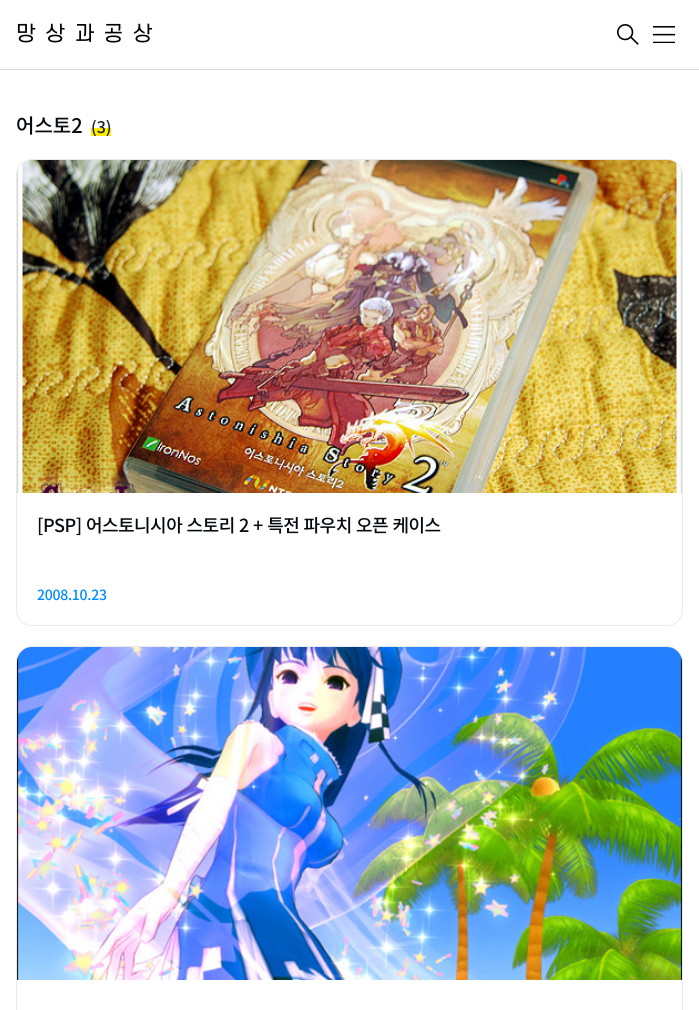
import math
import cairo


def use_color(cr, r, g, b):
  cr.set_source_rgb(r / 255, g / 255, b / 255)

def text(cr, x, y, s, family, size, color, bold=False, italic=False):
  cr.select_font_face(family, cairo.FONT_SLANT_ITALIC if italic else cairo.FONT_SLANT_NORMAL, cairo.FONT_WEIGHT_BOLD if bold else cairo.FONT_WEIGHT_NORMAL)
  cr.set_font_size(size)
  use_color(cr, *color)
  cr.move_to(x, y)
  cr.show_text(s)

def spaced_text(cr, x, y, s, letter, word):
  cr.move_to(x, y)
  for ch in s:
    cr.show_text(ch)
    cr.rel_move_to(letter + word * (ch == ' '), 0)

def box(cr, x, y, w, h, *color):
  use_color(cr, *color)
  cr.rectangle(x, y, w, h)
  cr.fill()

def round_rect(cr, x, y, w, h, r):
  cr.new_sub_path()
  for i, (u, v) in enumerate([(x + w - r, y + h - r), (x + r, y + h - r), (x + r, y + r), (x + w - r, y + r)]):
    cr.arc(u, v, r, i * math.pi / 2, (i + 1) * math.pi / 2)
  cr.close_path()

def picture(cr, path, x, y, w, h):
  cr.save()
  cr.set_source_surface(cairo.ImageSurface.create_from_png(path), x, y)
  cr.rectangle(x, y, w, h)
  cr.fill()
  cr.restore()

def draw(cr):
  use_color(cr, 255, 255, 255)
  cr.paint()
  box(cr, 0, 69, 699, 1, 217, 217, 217)
  picture(cr, "img_01.png", 617, 24, 22, 21)
  picture(cr, "img_02.png", 653, 26, 22, 17)
  box(cr, 91, 128, 20, 8, 255, 235, 0)
  round_rect(cr, 16.5, 159.5, 666, 466, 15.5)
  use_color(cr, 235, 235, 235)
  cr.set_line_width(1)
  cr.stroke()
  picture(cr, "img_03.png", 17, 160, 665, 333)
  round_rect(cr, 16.5, 646.5, 666, 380, 15.5)
  cr.stroke()
  picture(cr, "img_04.png", 17, 647, 665, 333)
  cr.select_font_face("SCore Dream", cairo.FONT_SLANT_NORMAL, cairo.FONT_WEIGHT_BOLD)
  cr.set_font_size(20)
  use_color(cr, 0, 0, 0)
  spaced_text(cr, 16, 41, "망상과공상", 10, 0)
  text(cr, 16, 133, "어스토2", "Noto Sans KR Medium", 20, (6, 11, 17))
  text(cr, 91, 133, "(3)", "Noto Sans KR Medium", 16, (29, 33, 41))
  cr.set_font_size(18)
  use_color(cr, 6, 11, 17)
  spaced_text(cr, 37, 532, "[PSP] 어스토니시아 스토리 2 + 특전 파우치 오픈 케이스", -0.5, 0.75)
  cr.set_font_size(14)
  use_color(cr, 0, 141, 255)
  spaced_text(cr, 37, 600, "2008.10.23", -0.25, 0)


surface = cairo.ImageSurface(cairo.FORMAT_RGB24, 699, 1010)
cr = cairo.Context(surface)
options = cairo.FontOptions()
options.set_hint_metrics(cairo.HINT_METRICS_OFF)
options.set_hint_style(cairo.HINT_STYLE_NONE)
cr.set_font_options(options)
cr.set_miter_limit(4)
draw(cr)
surface.write_to_png("out.png")
